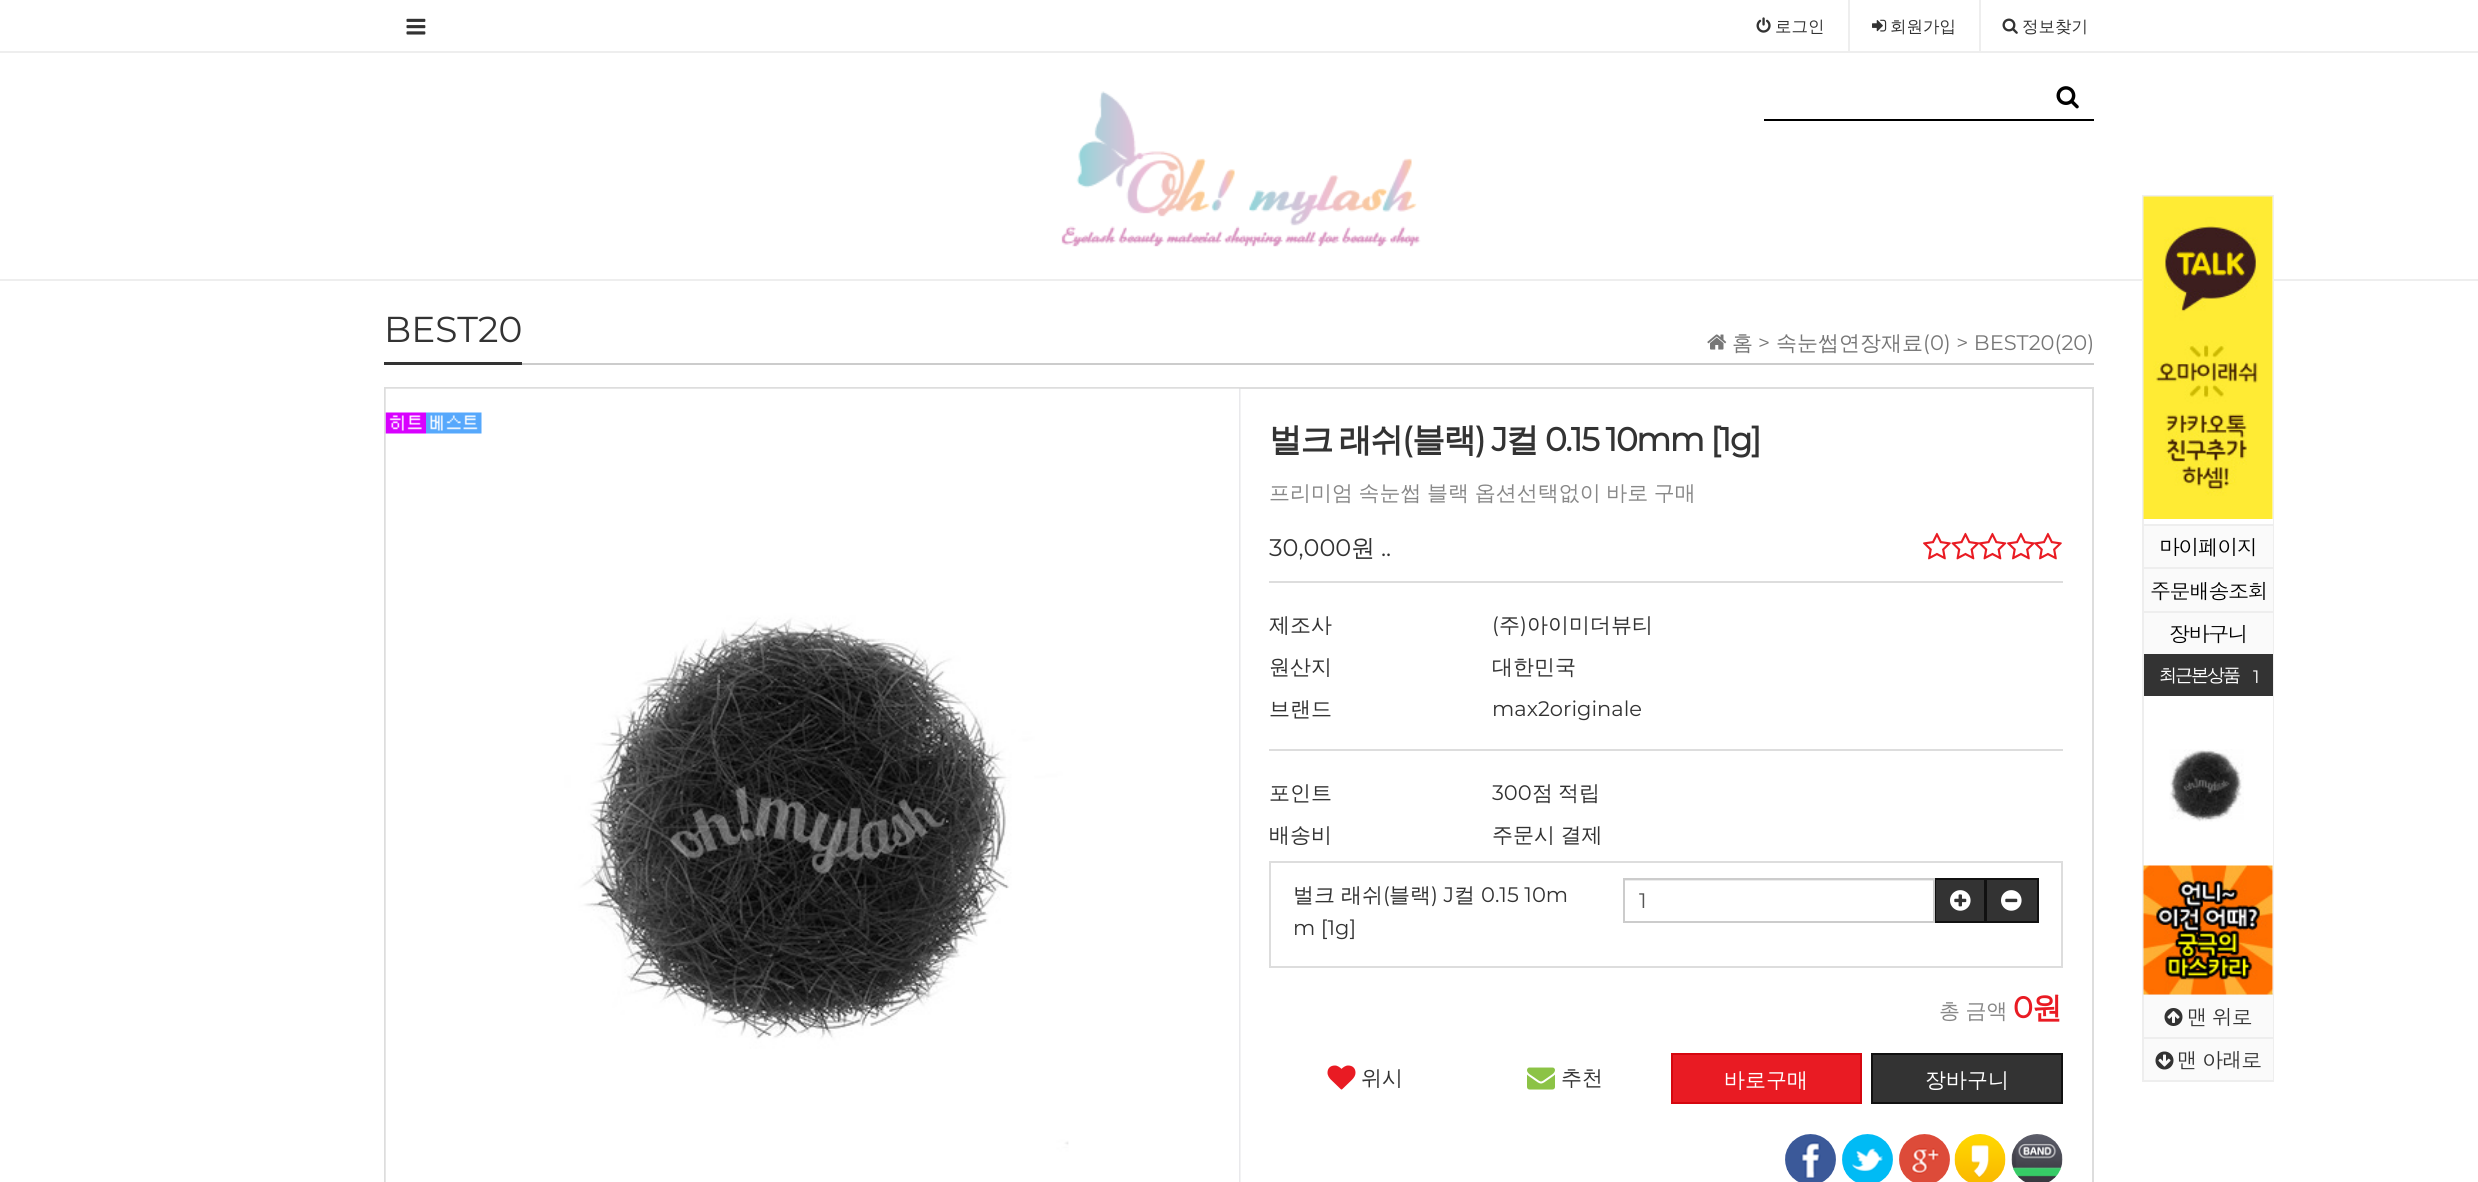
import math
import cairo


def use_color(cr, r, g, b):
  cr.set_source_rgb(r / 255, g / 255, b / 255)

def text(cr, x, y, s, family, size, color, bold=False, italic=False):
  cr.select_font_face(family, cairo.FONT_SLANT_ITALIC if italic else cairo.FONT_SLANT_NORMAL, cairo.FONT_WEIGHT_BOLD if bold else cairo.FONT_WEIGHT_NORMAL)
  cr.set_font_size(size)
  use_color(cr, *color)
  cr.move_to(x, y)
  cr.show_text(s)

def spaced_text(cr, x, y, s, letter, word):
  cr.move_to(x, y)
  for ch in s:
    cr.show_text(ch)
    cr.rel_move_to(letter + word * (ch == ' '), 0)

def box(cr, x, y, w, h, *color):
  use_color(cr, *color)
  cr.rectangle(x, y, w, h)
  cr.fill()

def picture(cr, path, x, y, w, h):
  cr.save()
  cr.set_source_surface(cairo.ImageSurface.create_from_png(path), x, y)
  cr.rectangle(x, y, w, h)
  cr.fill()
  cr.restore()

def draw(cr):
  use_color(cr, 255, 255, 255)
  cr.paint()
  box(cr, 0, 51, 2478, 2, 238, 238, 238)
  picture(cr, "img_01.png", 406, 18, 20, 17)
  box(cr, 1848, 0, 2, 51, 238, 238, 238)
  picture(cr, "img_02.png", 1756, 17, 15, 16)
  box(cr, 1979, 0, 2, 51, 238, 238, 238)
  picture(cr, "img_03.png", 1872, 19, 15, 13)
  picture(cr, "img_04.png", 2002, 18, 16, 16)
  picture(cr, "img_05.png", 1061, 91, 360, 156)
  box(cr, 1764, 119, 330, 2, 0, 0, 0)
  picture(cr, "img_06.png", 2056, 86, 23, 23)
  box(cr, 0, 279, 2478, 2, 238, 238, 238)
  box(cr, 522, 363, 1572, 2, 204, 204, 204)
  box(cr, 384, 362, 138, 3, 51, 51, 51)
  picture(cr, "img_07.png", 1707, 334, 20, 16)
  picture(cr, "img_08.png", 1239, 389, 2, 793)
  cr.rectangle(385, 388, 1708, 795)
  use_color(cr, 221, 221, 221)
  cr.stroke()
  picture(cr, "img_09.png", 385, 388, 854, 794)
  picture(cr, "img_10.png", 385, 412, 41, 22)
  picture(cr, "img_11.png", 426, 412, 56, 22)
  picture(cr, "img_12.png", 1923, 532, 28, 28)
  picture(cr, "img_13.png", 1951, 532, 29, 28)
  picture(cr, "img_14.png", 1978, 532, 29, 28)
  picture(cr, "img_12.png", 2007, 532, 28, 28)
  picture(cr, "img_15.png", 2034, 532, 28, 28)
  box(cr, 1269, 581, 794, 2, 221, 221, 221)
  box(cr, 1269, 749, 794, 2, 221, 221, 221)
  cr.rectangle(1270, 862, 792, 105)
  cr.stroke()
  box(cr, 1625, 880, 309, 1, 236, 236, 236)
  use_color(cr, 51, 51, 51)
  cr.rectangle(1935, 879, 50, 43)
  cr.fill_preserve()
  use_color(cr, 17, 17, 17)
  cr.stroke()
  cr.rectangle(1624, 879, 310, 43)
  use_color(cr, 204, 204, 204)
  cr.stroke()
  picture(cr, "img_16.png", 1950, 890, 21, 21)
  use_color(cr, 51, 51, 51)
  cr.rectangle(1986, 879, 52, 43)
  cr.fill_preserve()
  use_color(cr, 17, 17, 17)
  cr.stroke()
  picture(cr, "img_17.png", 2001, 890, 21, 21)
  picture(cr, "img_18.png", 1327, 1065, 29, 25)
  picture(cr, "img_19.png", 1527, 1067, 28, 23)
  use_color(cr, 233, 27, 35)
  cr.rectangle(1672, 1054, 189, 49)
  cr.fill_preserve()
  use_color(cr, 213, 7, 15)
  cr.stroke()
  use_color(cr, 51, 51, 51)
  cr.rectangle(1872, 1054, 190, 49)
  cr.fill_preserve()
  use_color(cr, 17, 17, 17)
  cr.stroke()
  picture(cr, "img_20.png", 1785, 1134, 51, 48)
  picture(cr, "img_21.png", 1842, 1134, 51, 48)
  picture(cr, "img_22.png", 1899, 1134, 51, 48)
  picture(cr, "img_23.png", 1954, 1134, 52, 48)
  picture(cr, "img_24.png", 2011, 1134, 52, 48)
  cr.rectangle(2143, 196, 130, 885)
  use_color(cr, 238, 238, 238)
  cr.stroke()
  box(cr, 2144, 197, 129, 796, 255, 255, 255)
  picture(cr, "img_25.png", 2143, 196, 130, 323)
  box(cr, 2144, 526, 129, 128, 250, 250, 250)
  box(cr, 2144, 524, 129, 2, 238, 238, 238)
  box(cr, 2144, 567, 129, 2, 238, 238, 238)
  box(cr, 2144, 611, 129, 2, 238, 238, 238)
  box(cr, 2144, 654, 129, 42, 51, 51, 51)
  picture(cr, "img_26.png", 2169, 749, 75, 73)
  box(cr, 2144, 993, 129, 2, 238, 238, 238)
  picture(cr, "img_27.png", 2143, 865, 130, 130)
  box(cr, 2144, 995, 129, 85, 250, 250, 250)
  box(cr, 2144, 1037, 129, 2, 238, 238, 238)
  picture(cr, "img_28.png", 2164, 1008, 19, 18)
  picture(cr, "img_29.png", 2155, 1051, 19, 19)
  text(cr, 1775, 32, "로그인", "WenQuanYi Zen Hei Medium", 16.5, (51, 51, 51))
  text(cr, 1890, 32, "회원가입", "WenQuanYi Zen Hei Medium", 16.5, (51, 51, 51))
  text(cr, 2022, 32, "정보찾기", "WenQuanYi Zen Hei Medium", 16.5, (51, 51, 51))
  text(cr, 384, 342, "BEST20", "Montserrat Thin", 36, (51, 51, 51))
  text(cr, 1732, 350, "홈", "WenQuanYi Zen Hei Medium", 21, (119, 119, 119))
  text(cr, 1758, 350, ">", "Montserrat Thin", 21, (119, 119, 119))
  text(cr, 1776, 350, "속눈썹연장재료", "WenQuanYi Zen Hei Medium", 21, (119, 119, 119))
  text(cr, 1923, 350, "(0) > BEST20(20)", "Montserrat Thin", 21, (119, 119, 119))
  cr.select_font_face("WenQuanYi Zen Hei", cairo.FONT_SLANT_NORMAL, cairo.FONT_WEIGHT_BOLD)
  cr.set_font_size(33)
  use_color(cr, 51, 51, 51)
  spaced_text(cr, 1269, 451, "벌크", -1.5, 0)
  spaced_text(cr, 1339, 451, "래쉬", -1.5, 0)
  cr.select_font_face("Montserrat", cairo.FONT_SLANT_NORMAL, cairo.FONT_WEIGHT_BOLD)
  spaced_text(cr, 1402, 451, "(", -1.5, 0)
  cr.select_font_face("WenQuanYi Zen Hei", cairo.FONT_SLANT_NORMAL, cairo.FONT_WEIGHT_BOLD)
  spaced_text(cr, 1412, 451, "블랙", -1.5, 0)
  cr.select_font_face("Montserrat", cairo.FONT_SLANT_NORMAL, cairo.FONT_WEIGHT_BOLD)
  spaced_text(cr, 1475, 451, ") J", -1.5, 0)
  cr.select_font_face("WenQuanYi Zen Hei", cairo.FONT_SLANT_NORMAL, cairo.FONT_WEIGHT_BOLD)
  spaced_text(cr, 1506, 451, "컬", -1.5, 0)
  cr.select_font_face("Montserrat", cairo.FONT_SLANT_NORMAL, cairo.FONT_WEIGHT_BOLD)
  spaced_text(cr, 1545, 451, "0.15 10mm [1g]", -1.5, 0)
  cr.select_font_face("WenQuanYi Zen Hei Medium")
  cr.set_font_size(21)
  use_color(cr, 136, 136, 136)
  spaced_text(cr, 1269, 500, "프리미엄 속눈썹 블랙 옵션선택없이 바로 구매", 0, -0.75)
  text(cr, 1269, 556, "30,000", "Montserrat Thin", 24, (51, 51, 51))
  text(cr, 1351, 556, "원", "WenQuanYi Zen Hei Medium", 24, (51, 51, 51))
  text(cr, 1381, 556, "..", "Montserrat Thin", 24, (51, 51, 51))
  text(cr, 1269, 632, "제조사", "WenQuanYi Zen Hei Medium", 21, (51, 51, 51))
  text(cr, 1492, 632, "(", "Montserrat Thin", 21, (51, 51, 51))
  text(cr, 1499, 632, "주", "WenQuanYi Zen Hei Medium", 21, (51, 51, 51))
  text(cr, 1520, 632, ")", "Montserrat Thin", 21, (51, 51, 51))
  text(cr, 1527, 632, "아이미더뷰티", "WenQuanYi Zen Hei Medium", 21, (51, 51, 51))
  text(cr, 1269, 674, "원산지", "WenQuanYi Zen Hei Medium", 21, (51, 51, 51))
  text(cr, 1492, 674, "대한민국", "WenQuanYi Zen Hei Medium", 21, (51, 51, 51))
  text(cr, 1269, 716, "브랜드", "WenQuanYi Zen Hei Medium", 21, (51, 51, 51))
  text(cr, 1492, 716, "max2originale", "Montserrat Thin", 21, (51, 51, 51))
  text(cr, 1269, 800, "포인트", "WenQuanYi Zen Hei Medium", 21, (51, 51, 51))
  text(cr, 1492, 800, "300", "Montserrat Thin", 21, (51, 51, 51))
  text(cr, 1532, 800, "점", "WenQuanYi Zen Hei Medium", 21, (51, 51, 51))
  text(cr, 1558, 800, "적립", "WenQuanYi Zen Hei Medium", 21, (51, 51, 51))
  text(cr, 1269, 842, "배송비", "WenQuanYi Zen Hei Medium", 21, (51, 51, 51))
  spaced_text(cr, 1492, 842, "주문시 결제", 0, -0.75)
  text(cr, 1293, 902, "벌크", "WenQuanYi Zen Hei Medium", 21, (51, 51, 51))
  text(cr, 1341, 902, "래쉬", "WenQuanYi Zen Hei Medium", 21, (51, 51, 51))
  text(cr, 1383, 902, "(", "Montserrat Thin", 21, (51, 51, 51))
  text(cr, 1389, 902, "블랙", "WenQuanYi Zen Hei Medium", 21, (51, 51, 51))
  text(cr, 1431, 902, ") J", "Montserrat Thin", 21, (51, 51, 51))
  text(cr, 1454, 902, "컬", "WenQuanYi Zen Hei Medium", 21, (51, 51, 51))
  text(cr, 1481, 902, "0.15 10m", "Montserrat Thin", 21, (51, 51, 51))
  text(cr, 1293, 935, "m [1g]", "Montserrat Thin", 21, (51, 51, 51))
  text(cr, 1639, 908, "1", "Montserrat Thin", 21, (85, 85, 85))
  cr.select_font_face("WenQuanYi Zen Hei Medium")
  use_color(cr, 136, 136, 136)
  spaced_text(cr, 1939, 1018, "총 금액", 0, -0.75)
  text(cr, 2013, 1018, "0", "Montserrat", 30, (233, 27, 35), bold=True)
  text(cr, 2032, 1018, "원", "WenQuanYi Zen Hei", 30, (233, 27, 35), bold=True)
  text(cr, 1361, 1085, "위시", "WenQuanYi Zen Hei Medium", 21, (51, 51, 51))
  text(cr, 1561, 1085, "추천", "WenQuanYi Zen Hei Medium", 21, (51, 51, 51))
  text(cr, 1724, 1087, "바로구매", "WenQuanYi Zen Hei Medium", 21, (255, 255, 255))
  text(cr, 1925, 1087, "장바구니", "WenQuanYi Zen Hei Medium", 21, (255, 255, 255))
  cr.select_font_face("Dotum")
  use_color(cr, 0, 0, 0)
  spaced_text(cr, 2159, 555, "마이페이지", -1.5, 0)
  spaced_text(cr, 2150, 599, "주문배송조회", -1.5, 0)
  spaced_text(cr, 2169, 642, "장바구니", -1.5, 0)
  cr.select_font_face("WenQuanYi Zen Hei Medium")
  cr.set_font_size(18)
  use_color(cr, 255, 255, 255)
  spaced_text(cr, 2159, 681, "최근본상품", -2, 0)
  cr.select_font_face("Montserrat Thin")
  spaced_text(cr, 2253, 683, "1", -2, 0)
  cr.select_font_face("Dotum")
  cr.set_font_size(21)
  use_color(cr, 51, 51, 51)
  spaced_text(cr, 2187, 1025, "맨 위로", -1.5, 0)
  spaced_text(cr, 2177, 1068, "맨 아래로", -1.5, 0)


surface = cairo.ImageSurface(cairo.FORMAT_RGB24, 2478, 1182)
cr = cairo.Context(surface)
options = cairo.FontOptions()
options.set_hint_metrics(cairo.HINT_METRICS_OFF)
options.set_hint_style(cairo.HINT_STYLE_NONE)
cr.set_font_options(options)
cr.set_miter_limit(4)
draw(cr)
surface.write_to_png("out.png")
